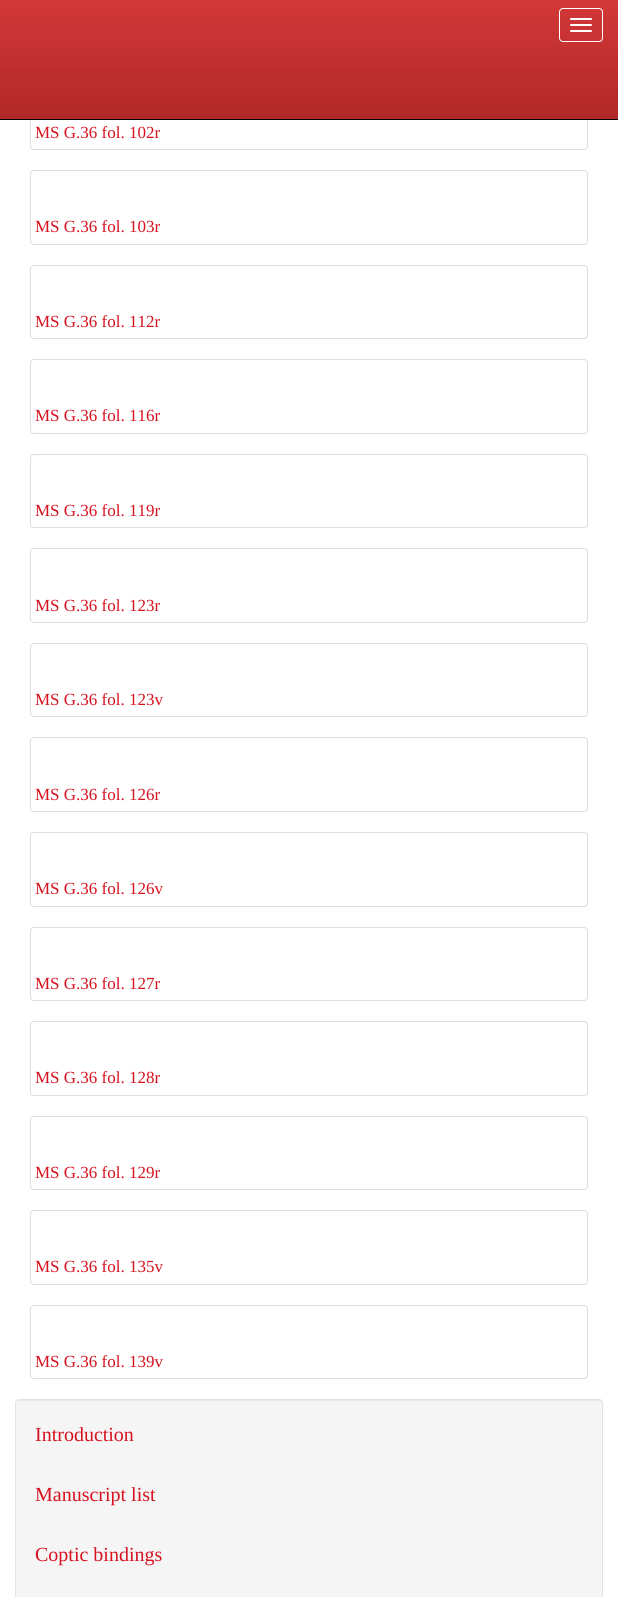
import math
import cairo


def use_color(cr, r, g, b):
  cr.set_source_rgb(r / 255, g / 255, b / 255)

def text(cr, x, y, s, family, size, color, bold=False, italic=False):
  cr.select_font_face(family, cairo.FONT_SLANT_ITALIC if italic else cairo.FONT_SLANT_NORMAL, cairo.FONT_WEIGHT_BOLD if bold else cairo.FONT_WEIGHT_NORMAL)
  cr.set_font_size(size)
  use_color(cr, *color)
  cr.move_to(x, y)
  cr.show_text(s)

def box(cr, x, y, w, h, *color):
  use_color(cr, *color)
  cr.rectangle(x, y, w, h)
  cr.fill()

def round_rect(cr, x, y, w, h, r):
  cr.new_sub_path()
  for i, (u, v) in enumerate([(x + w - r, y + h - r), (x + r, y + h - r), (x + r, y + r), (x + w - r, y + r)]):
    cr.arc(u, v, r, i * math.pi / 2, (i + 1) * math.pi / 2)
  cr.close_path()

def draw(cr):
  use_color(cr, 255, 255, 255)
  cr.paint()
  round_rect(cr, 30.5, 75.5, 557, 74, 3.5)
  use_color(cr, 221, 221, 221)
  cr.set_line_width(1)
  cr.stroke()
  gradient = cairo.LinearGradient(309, 0, 309, 119)
  gradient.add_color_stop_rgba(0, 0.827, 0.22, 0.22, 1)
  gradient.add_color_stop_rgba(1, 0.698, 0.153, 0.153, 1)
  cr.set_source(gradient)
  cr.rectangle(0, 0, 618, 119)
  cr.fill()
  box(cr, 0, 119, 618, 1, 8, 8, 8)
  round_rect(cr, 559.5, 8.5, 43, 33, 3.5)
  use_color(cr, 255, 255, 255)
  cr.stroke()
  round_rect(cr, 570, 18, 22, 2, 1)
  cr.fill()
  round_rect(cr, 570, 24, 22, 2, 1)
  cr.fill()
  round_rect(cr, 570, 30, 22, 2, 1)
  cr.fill()
  round_rect(cr, 30.5, 170.5, 557, 74, 3.5)
  use_color(cr, 221, 221, 221)
  cr.stroke()
  round_rect(cr, 30.5, 265.5, 557, 73, 3.5)
  cr.stroke()
  round_rect(cr, 30.5, 359.5, 557, 74, 3.5)
  cr.stroke()
  round_rect(cr, 30.5, 454.5, 557, 73, 3.5)
  cr.stroke()
  round_rect(cr, 30.5, 548.5, 557, 74, 3.5)
  cr.stroke()
  round_rect(cr, 30.5, 643.5, 557, 73, 3.5)
  cr.stroke()
  round_rect(cr, 30.5, 737.5, 557, 74, 3.5)
  cr.stroke()
  round_rect(cr, 30.5, 832.5, 557, 74, 3.5)
  cr.stroke()
  round_rect(cr, 30.5, 927.5, 557, 73, 3.5)
  cr.stroke()
  round_rect(cr, 30.5, 1021.5, 557, 74, 3.5)
  cr.stroke()
  round_rect(cr, 30.5, 1116.5, 557, 73, 3.5)
  cr.stroke()
  round_rect(cr, 30.5, 1210.5, 557, 74, 3.5)
  cr.stroke()
  round_rect(cr, 30.5, 1305.5, 557, 73, 3.5)
  cr.stroke()
  use_color(cr, 245, 245, 245)
  round_rect(cr, 15, 1399, 588, 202, 4)
  cr.fill()
  use_color(cr, 233, 233, 233)
  cr.new_path()
  cr.move_to(19, 1401)
  cr.line_to(599, 1401)
  cr.curve_to(601, 1401, 602, 1402, 602, 1404)
  cr.line_to(602, 1403)
  cr.curve_to(602, 1401, 601, 1400, 599, 1400)
  cr.line_to(19, 1400)
  cr.curve_to(17, 1400, 16, 1401, 16, 1403)
  cr.line_to(16, 1404)
  cr.curve_to(16, 1402, 17, 1401, 19, 1401)
  cr.close_path()
  cr.fill()
  round_rect(cr, 15.5, 1399.5, 587, 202, 3.5)
  use_color(cr, 227, 227, 227)
  cr.stroke()
  text(cr, 35, 138, "MS G.36 fol. 102r", "Liberation Serif", 17, (214, 18, 31))
  text(cr, 35, 232, "MS G.36 fol. 103r", "Liberation Serif", 17, (214, 18, 31))
  text(cr, 35, 327, "MS G.36 fol. 112r", "Liberation Serif", 17, (214, 18, 31))
  text(cr, 35, 421, "MS G.36 fol. 116r", "Liberation Serif", 17, (214, 18, 31))
  text(cr, 35, 516, "MS G.36 fol. 119r", "Liberation Serif", 17, (214, 18, 31))
  text(cr, 35, 611, "MS G.36 fol. 123r", "Liberation Serif", 17, (214, 18, 31))
  text(cr, 35, 705, "MS G.36 fol. 123v", "Liberation Serif", 17, (214, 18, 31))
  text(cr, 35, 800, "MS G.36 fol. 126r", "Liberation Serif", 17, (214, 18, 31))
  text(cr, 35, 894, "MS G.36 fol. 126v", "Liberation Serif", 17, (214, 18, 31))
  text(cr, 35, 989, "MS G.36 fol. 127r", "Liberation Serif", 17, (214, 18, 31))
  text(cr, 35, 1083, "MS G.36 fol. 128r", "Liberation Serif", 17, (214, 18, 31))
  text(cr, 35, 1178, "MS G.36 fol. 129r", "Liberation Serif", 17, (214, 18, 31))
  text(cr, 35, 1272, "MS G.36 fol. 135v", "Liberation Serif", 17, (214, 18, 31))
  text(cr, 35, 1367, "MS G.36 fol. 139v", "Liberation Serif", 17, (214, 18, 31))
  text(cr, 35, 1441, "Introduction", "Liberation Serif", 20, (214, 18, 31))
  text(cr, 35, 1501, "Manuscript list", "Liberation Serif", 20, (214, 18, 31))
  text(cr, 35, 1561, "Coptic bindings", "Liberation Serif", 20, (214, 18, 31))


surface = cairo.ImageSurface(cairo.FORMAT_RGB24, 618, 1597)
cr = cairo.Context(surface)
options = cairo.FontOptions()
options.set_hint_metrics(cairo.HINT_METRICS_OFF)
options.set_hint_style(cairo.HINT_STYLE_NONE)
cr.set_font_options(options)
cr.set_miter_limit(4)
draw(cr)
surface.write_to_png("out.png")
